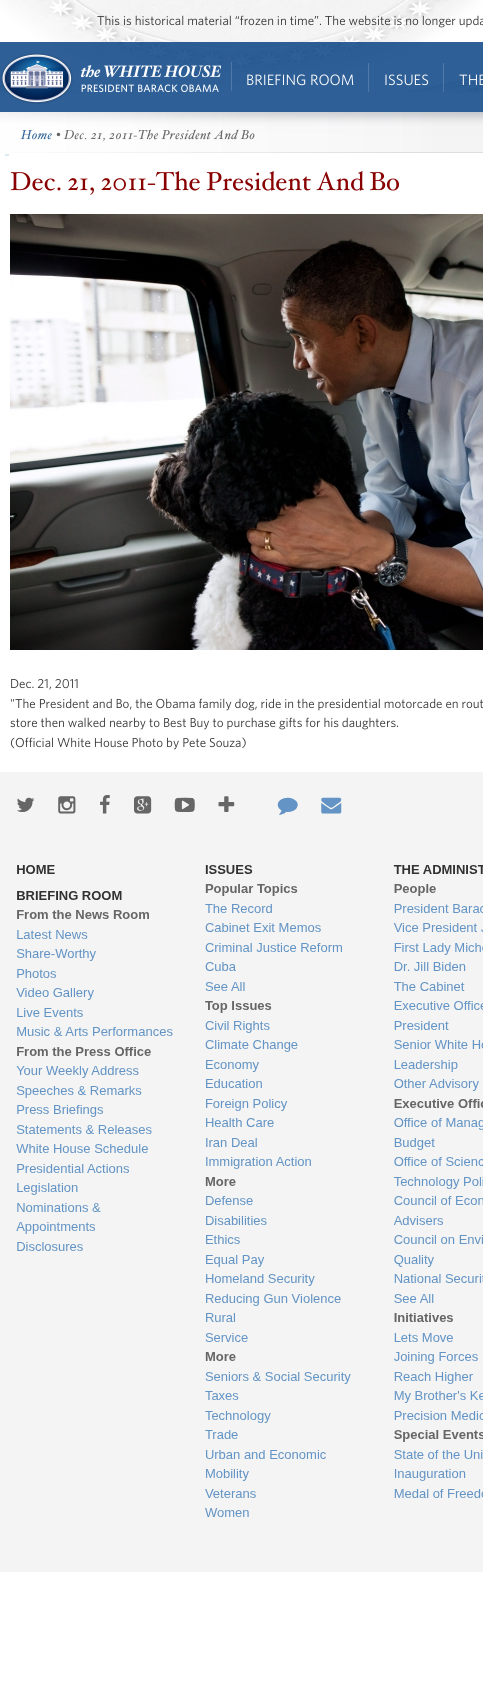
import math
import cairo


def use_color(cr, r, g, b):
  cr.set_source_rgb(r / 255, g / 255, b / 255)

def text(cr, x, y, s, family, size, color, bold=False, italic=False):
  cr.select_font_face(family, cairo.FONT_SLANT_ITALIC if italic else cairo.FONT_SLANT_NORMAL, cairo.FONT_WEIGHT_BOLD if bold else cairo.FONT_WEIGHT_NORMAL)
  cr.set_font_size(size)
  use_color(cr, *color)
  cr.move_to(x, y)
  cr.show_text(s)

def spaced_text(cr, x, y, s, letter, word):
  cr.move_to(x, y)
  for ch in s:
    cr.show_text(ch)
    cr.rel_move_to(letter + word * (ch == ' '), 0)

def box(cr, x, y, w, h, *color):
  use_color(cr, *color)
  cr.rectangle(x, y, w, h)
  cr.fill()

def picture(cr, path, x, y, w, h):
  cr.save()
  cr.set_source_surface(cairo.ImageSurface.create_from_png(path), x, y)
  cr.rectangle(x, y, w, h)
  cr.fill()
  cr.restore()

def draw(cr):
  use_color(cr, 255, 255, 255)
  cr.paint()
  picture(cr, "img_01.png", 0, 0, 483, 94)
  cr.set_source_rgba(0, 0.235, 0.502, 0.82)
  cr.rectangle(0, 42, 483, 70)
  cr.fill()
  picture(cr, "img_02.png", 1, 53, 220, 51)
  picture(cr, "img_03.png", 231, 62, 1, 29)
  picture(cr, "img_04.png", 368, 63, 1, 29)
  picture(cr, "img_05.png", 443, 63, 1, 29)
  picture(cr, "img_06.png", 0, 112, 483, 41)
  box(cr, 5, 154, 4, 2, 218, 234, 243)
  picture(cr, "img_07.png", 10, 214, 473, 436)
  box(cr, 0, 1517, 483, 55, 244, 244, 244)
  picture(cr, "img_08.png", 0, 772, 483, 745)
  text(cr, 97, 25, "This is historical material “frozen in time”. The website is no longer upda", "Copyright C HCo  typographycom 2 Light", 13, (51, 51, 51))
  text(cr, 246, 85, "BRIEFING ROOM", "Copyright C HCo  typographycom 2 Light", 15, (255, 255, 255))
  text(cr, 384, 85, "ISSUES", "Copyright C HCo  typographycom 2 Light", 15, (255, 255, 255))
  text(cr, 459, 85, "THE", "Copyright C HCo  typographycom 2 Light", 15, (255, 255, 255))
  cr.select_font_face("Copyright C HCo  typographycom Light", cairo.FONT_SLANT_ITALIC)
  cr.set_font_size(13)
  use_color(cr, 51, 102, 153)
  spaced_text(cr, 21, 139, "Home", 0.4, 0)
  use_color(cr, 102, 102, 102)
  spaced_text(cr, 56, 139, "• Dec. 21, 2011-The President And Bo", 0.4, 0)
  text(cr, 10, 190, "Dec. 21, 2011-The President And Bo", "Copyright C HCo  typographycom Light", 26, (136, 0, 0))
  text(cr, 10, 688, "Dec. 21, 2011", "Copyright C HCo  typographycom 2 Light", 13, (51, 51, 51))
  text(cr, 10, 708, "\"The President and Bo, the Obama family dog, ride in the presidential motorcade en rout", "Copyright C HCo  typographycom 2 Light", 13, (51, 51, 51))
  text(cr, 10, 727, "store then walked nearby to Best Buy to purchase gifts for his daughters.", "Copyright C HCo  typographycom 2 Light", 13, (51, 51, 51))
  text(cr, 10, 747, "(Official White House Photo by Pete Souza)", "Copyright C HCo  typographycom 2 Light", 13, (51, 51, 51))


surface = cairo.ImageSurface(cairo.FORMAT_RGB24, 483, 1703)
cr = cairo.Context(surface)
options = cairo.FontOptions()
options.set_hint_metrics(cairo.HINT_METRICS_OFF)
options.set_hint_style(cairo.HINT_STYLE_NONE)
cr.set_font_options(options)
cr.set_miter_limit(4)
draw(cr)
surface.write_to_png("out.png")
